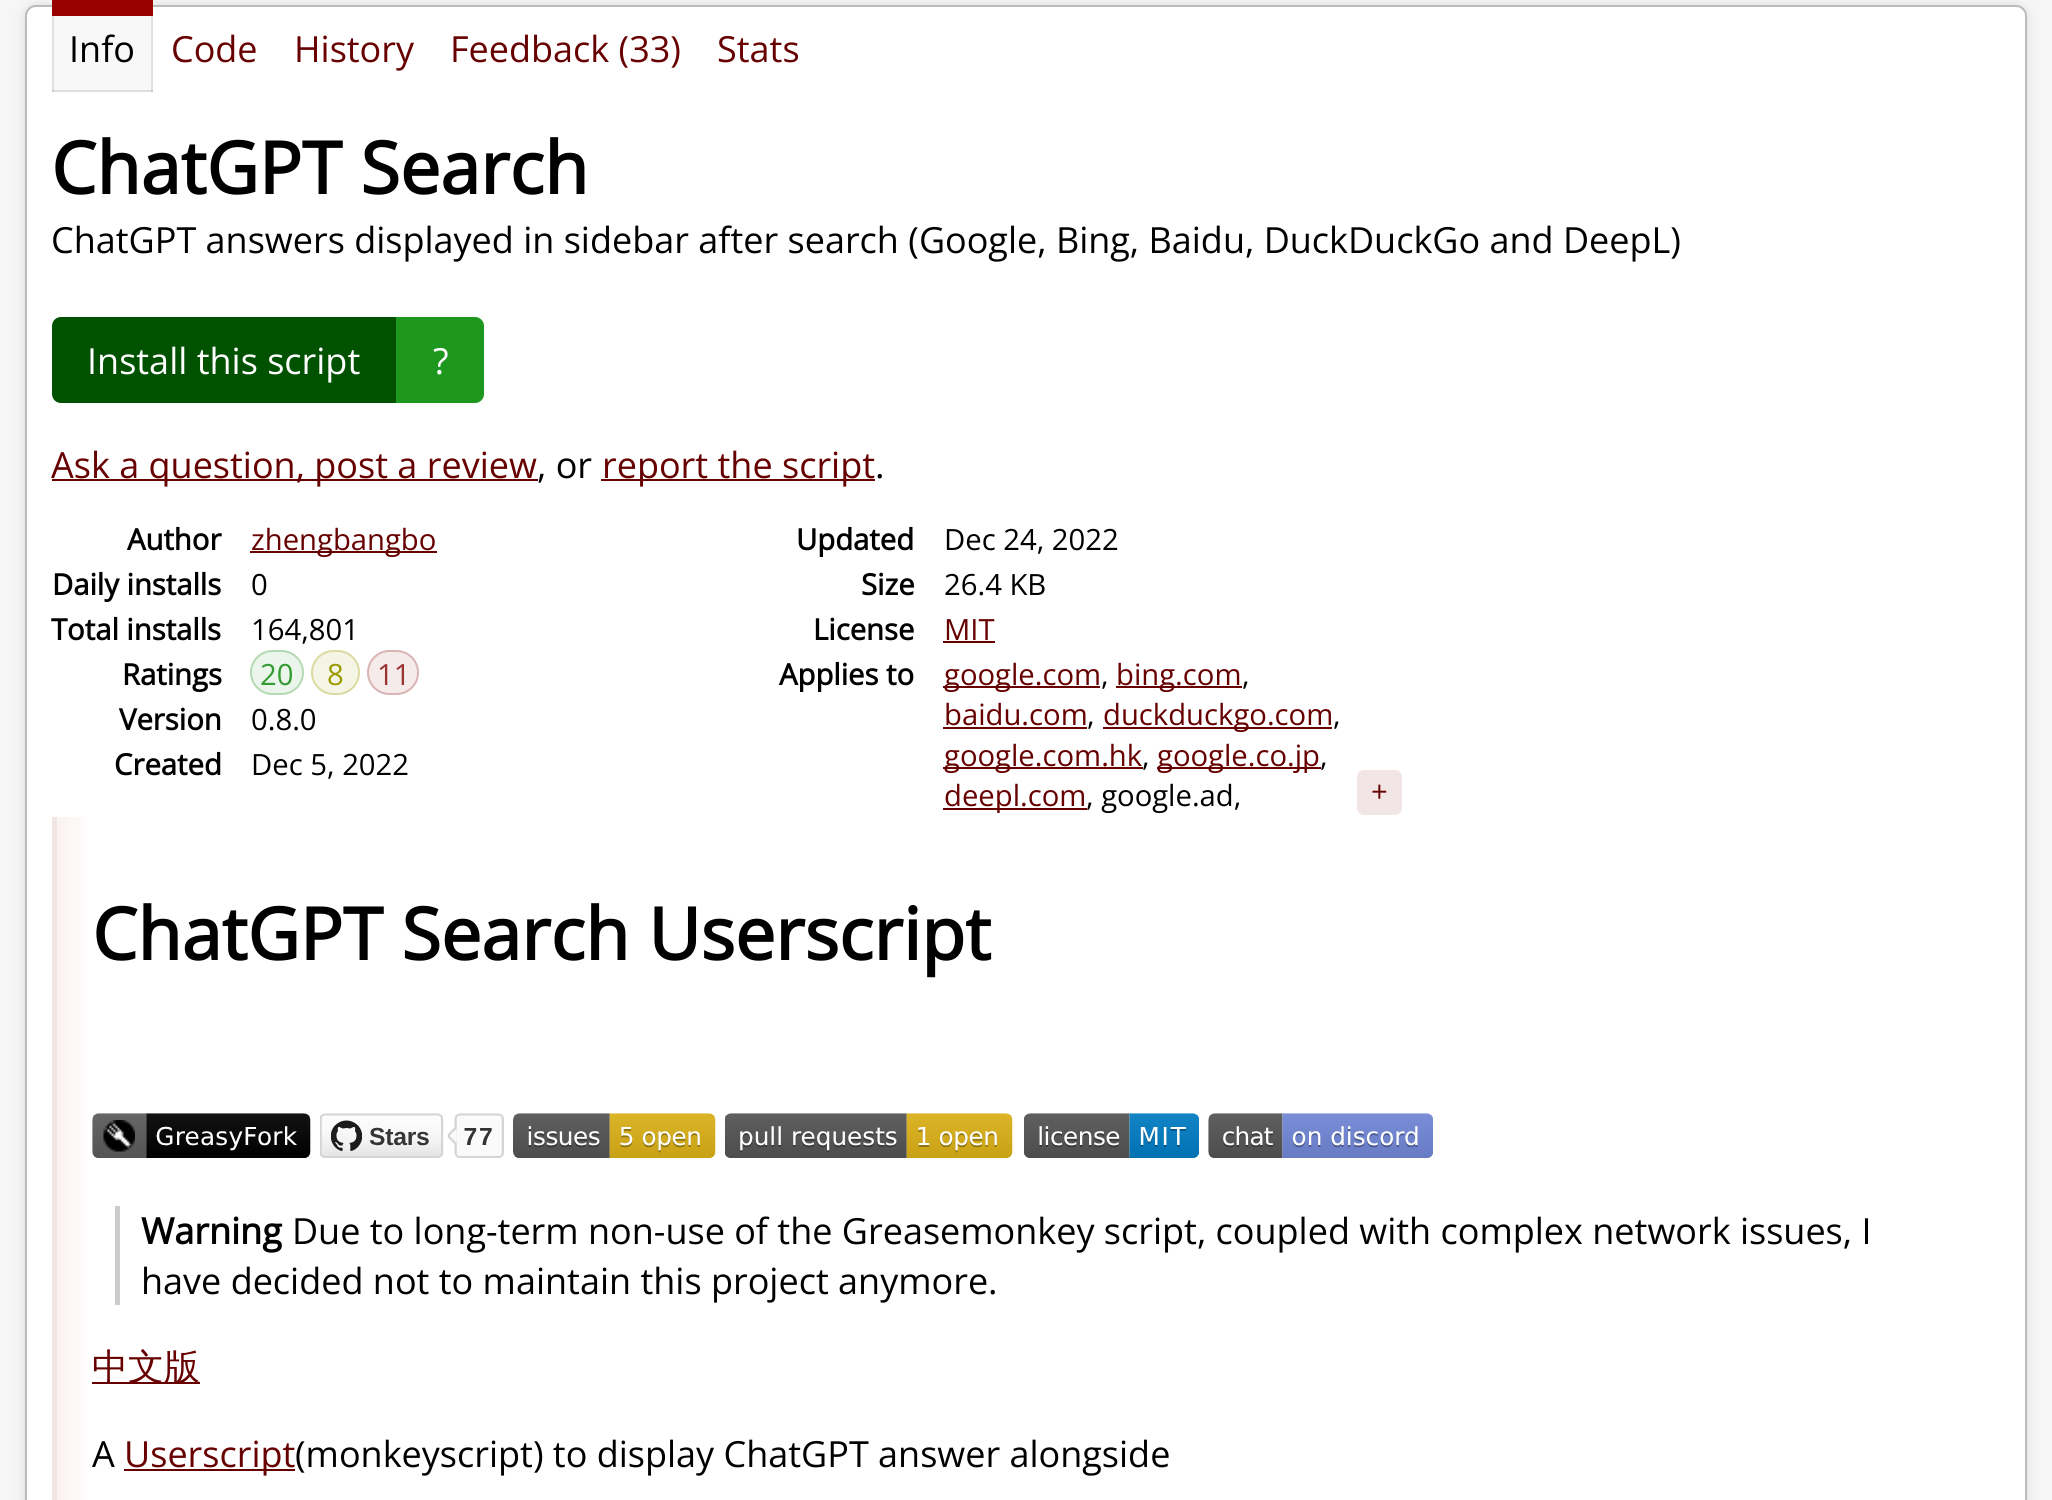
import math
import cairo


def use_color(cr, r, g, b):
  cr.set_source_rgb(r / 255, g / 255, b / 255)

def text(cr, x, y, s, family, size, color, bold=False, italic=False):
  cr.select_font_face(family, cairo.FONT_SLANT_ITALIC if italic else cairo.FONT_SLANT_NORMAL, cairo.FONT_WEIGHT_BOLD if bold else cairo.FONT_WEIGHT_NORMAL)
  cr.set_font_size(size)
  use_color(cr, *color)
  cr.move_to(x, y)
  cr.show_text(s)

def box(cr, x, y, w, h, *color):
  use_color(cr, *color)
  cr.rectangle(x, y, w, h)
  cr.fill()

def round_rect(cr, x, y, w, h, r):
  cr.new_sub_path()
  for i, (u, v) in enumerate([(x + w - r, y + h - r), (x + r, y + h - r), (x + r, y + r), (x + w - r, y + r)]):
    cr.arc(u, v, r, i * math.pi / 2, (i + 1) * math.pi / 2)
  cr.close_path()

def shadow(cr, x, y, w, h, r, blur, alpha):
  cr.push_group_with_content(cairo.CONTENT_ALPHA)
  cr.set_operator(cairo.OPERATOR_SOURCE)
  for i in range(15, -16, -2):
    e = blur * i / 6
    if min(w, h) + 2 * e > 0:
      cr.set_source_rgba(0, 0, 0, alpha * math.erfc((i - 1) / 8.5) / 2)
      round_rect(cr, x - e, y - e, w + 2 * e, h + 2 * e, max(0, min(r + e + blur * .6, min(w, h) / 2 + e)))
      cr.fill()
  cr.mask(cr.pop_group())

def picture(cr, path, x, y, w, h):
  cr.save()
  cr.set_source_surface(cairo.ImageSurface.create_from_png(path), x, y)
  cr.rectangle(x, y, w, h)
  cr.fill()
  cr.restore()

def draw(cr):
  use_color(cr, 246, 246, 246)
  cr.paint()
  use_color(cr, 221, 221, 221)
  shadow(cr, 25, 5, 2002, 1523, 11, 5.5, 1)
  use_color(cr, 255, 255, 255)
  round_rect(cr, 26, 6, 2000, 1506, 10)
  cr.fill_preserve()
  use_color(cr, 187, 187, 187)
  cr.stroke()
  cr.set_source_rgba(0, 0, 0, 0.03)
  cr.rectangle(52, 16, 101, 74)
  cr.fill()
  box(cr, 52, 90, 101, 2, 223, 223, 223)
  cr.set_source_rgba(0, 0, 0, 0.1)
  cr.rectangle(151, 16, 2, 76)
  cr.fill()
  cr.rectangle(52, 16, 2, 76)
  cr.fill()
  box(cr, 52, 0, 101, 16, 153, 0, 0)
  use_color(cr, 0, 82, 0)
  cr.new_path()
  cr.move_to(61, 317)
  cr.line_to(396, 317)
  cr.line_to(396, 403)
  cr.line_to(61, 403)
  cr.curve_to(56, 403, 52, 399, 52, 394)
  cr.line_to(52, 326)
  cr.curve_to(52, 321, 56, 317, 61, 317)
  cr.close_path()
  cr.fill()
  use_color(cr, 30, 151, 30)
  cr.new_path()
  cr.move_to(396, 317)
  cr.line_to(475, 317)
  cr.curve_to(480, 317, 484, 321, 484, 326)
  cr.line_to(484, 394)
  cr.curve_to(484, 399, 480, 403, 475, 403)
  cr.line_to(396, 403)
  cr.close_path()
  cr.fill()
  box(cr, 52, 479, 486, 2, 103, 0, 0)
  box(cr, 601, 479, 274, 2, 103, 0, 0)
  box(cr, 250, 551, 187, 2, 103, 0, 0)
  box(cr, 943, 641, 52, 2, 103, 0, 0)
  use_color(cr, 235, 245, 235)
  round_rect(cr, 250, 650, 54, 45, 22.5)
  cr.fill()
  round_rect(cr, 251, 651, 52, 43, 21.5)
  cr.set_source_rgba(0.2, 0.608, 0.2, 0.3)
  cr.stroke()
  use_color(cr, 245, 245, 230)
  round_rect(cr, 311, 650, 49, 45, 22.5)
  cr.fill()
  round_rect(cr, 312, 651, 47, 43, 21.5)
  cr.set_source_rgba(0.608, 0.608, 0, 0.3)
  cr.stroke()
  use_color(cr, 245, 235, 235)
  round_rect(cr, 367, 650, 52, 45, 22.5)
  cr.fill()
  round_rect(cr, 368, 651, 50, 43, 21.5)
  cr.set_source_rgba(0.608, 0.2, 0.2, 0.3)
  cr.stroke()
  box(cr, 943, 686, 157, 2, 103, 0, 0)
  box(cr, 1116, 686, 126, 2, 103, 0, 0)
  box(cr, 943, 727, 144, 2, 103, 0, 0)
  box(cr, 1103, 727, 229, 2, 103, 0, 0)
  box(cr, 943, 767, 200, 2, 103, 0, 0)
  box(cr, 1157, 767, 164, 2, 103, 0, 0)
  box(cr, 943, 808, 144, 2, 103, 0, 0)
  use_color(cr, 242, 229, 229)
  round_rect(cr, 1357, 770, 45, 45, 7)
  cr.fill()
  gradient = cairo.LinearGradient(56, 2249, 2000, 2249)
  gradient.add_color_stop_rgba(0, 0.988, 0.945, 0.945, 1)
  gradient.add_color_stop_rgba(0.02, 1, 1, 1, 1)
  cr.set_source(gradient)
  cr.rectangle(57, 817, 31, 683)
  cr.fill()
  box(cr, 52, 817, 5, 683, 242, 229, 229)
  picture(cr, "img_01.png", 92, 1113, 219, 45)
  picture(cr, "img_02.png", 320, 1113, 184, 45)
  picture(cr, "img_03.png", 513, 1113, 203, 45)
  picture(cr, "img_04.png", 725, 1113, 288, 45)
  picture(cr, "img_05.png", 1024, 1113, 175, 45)
  picture(cr, "img_06.png", 1208, 1113, 225, 45)
  box(cr, 115, 1206, 5, 99, 204, 204, 204)
  box(cr, 92, 1382, 108, 2, 103, 0, 0)
  box(cr, 124, 1469, 171, 2, 103, 0, 0)
  text(cr, 69, 62, "Info", "Open Sans", 36, (0, 0, 0))
  text(cr, 171, 62, "Code", "Open Sans", 36, (103, 0, 0))
  text(cr, 294, 62, "History", "Open Sans", 36, (103, 0, 0))
  text(cr, 450, 62, "Feedback (33)", "Open Sans", 36, (103, 0, 0))
  text(cr, 717, 62, "Stats", "Open Sans", 36, (103, 0, 0))
  text(cr, 51, 194, "ChatGPT Search", "Open Sans", 72, (0, 0, 0), bold=True)
  text(cr, 51, 253, "ChatGPT answers displayed in sidebar after search (Google, Bing, Baidu, DuckDuckGo and DeepL)", "Open Sans", 36, (0, 0, 0))
  text(cr, 87, 374, "Install this script", "Open Sans", 36, (255, 255, 255))
  text(cr, 433, 374, "?", "Open Sans", 36, (255, 255, 255))
  text(cr, 51, 478, "Ask a question, post a review", "Open Sans", 36, (103, 0, 0))
  text(cr, 537, 478, ", or", "Open Sans", 36, (0, 0, 0))
  text(cr, 602, 478, "report the script", "Open Sans", 36, (103, 0, 0))
  text(cr, 875, 478, ".", "Open Sans", 36, (0, 0, 0))
  text(cr, 127, 550, "Author", "Open Sans", 29.25, (0, 0, 0), bold=True)
  text(cr, 251, 550, "zhengbangbo", "Open Sans", 29.25, (103, 0, 0))
  text(cr, 796, 550, "Updated", "Open Sans", 29.25, (0, 0, 0), bold=True)
  text(cr, 944, 550, "Dec 24, 2022", "Open Sans", 29.25, (0, 0, 0))
  text(cr, 52, 595, "Daily installs", "Open Sans", 29.25, (0, 0, 0), bold=True)
  text(cr, 251, 595, "0", "Open Sans", 29.25, (0, 0, 0))
  text(cr, 861, 595, "Size", "Open Sans", 29.25, (0, 0, 0), bold=True)
  text(cr, 944, 595, "26.4 KB", "Open Sans", 29.25, (0, 0, 0))
  text(cr, 51, 640, "Total installs", "Open Sans", 29.25, (0, 0, 0), bold=True)
  text(cr, 251, 640, "164,801", "Open Sans", 29.25, (0, 0, 0))
  text(cr, 813, 640, "License", "Open Sans", 29.25, (0, 0, 0), bold=True)
  text(cr, 944, 640, "MIT", "Open Sans", 29.25, (103, 0, 0))
  text(cr, 122, 685, "Ratings", "Open Sans", 29.25, (0, 0, 0), bold=True)
  text(cr, 260, 685, "20", "Open Sans", 29.25, (51, 155, 51))
  text(cr, 327, 685, "8", "Open Sans", 29.25, (155, 155, 0))
  text(cr, 377, 685, "11", "Open Sans", 29.25, (155, 51, 51))
  text(cr, 779, 685, "Applies to", "Open Sans", 29.25, (0, 0, 0), bold=True)
  text(cr, 944, 685, "google.com", "Open Sans", 29.25, (103, 0, 0))
  text(cr, 1101, 685, ",", "Open Sans", 29.25, (0, 0, 0))
  text(cr, 1116, 685, "bing.com", "Open Sans", 29.25, (103, 0, 0))
  text(cr, 1242, 685, ",", "Open Sans", 29.25, (0, 0, 0))
  text(cr, 944, 725, "baidu.com", "Open Sans", 29.25, (103, 0, 0))
  text(cr, 1087, 725, ",", "Open Sans", 29.25, (0, 0, 0))
  text(cr, 1103, 725, "duckduckgo.com", "Open Sans", 29.25, (103, 0, 0))
  text(cr, 1333, 725, ",", "Open Sans", 29.25, (0, 0, 0))
  text(cr, 944, 766, "google.com.hk", "Open Sans", 29.25, (103, 0, 0))
  text(cr, 1142, 766, ",", "Open Sans", 29.25, (0, 0, 0))
  text(cr, 1157, 766, "google.co.jp", "Open Sans", 29.25, (103, 0, 0))
  text(cr, 1320, 766, ",", "Open Sans", 29.25, (0, 0, 0))
  text(cr, 944, 806, "deepl.com", "Open Sans", 29.25, (103, 0, 0))
  text(cr, 1086, 806, ", google.ad,", "Open Sans", 29.25, (0, 0, 0))
  text(cr, 1371, 802, "+", "Open Sans", 29.25, (103, 0, 0))
  text(cr, 119, 730, "Version", "Open Sans", 29.25, (0, 0, 0), bold=True)
  text(cr, 251, 730, "0.8.0", "Open Sans", 29.25, (0, 0, 0))
  text(cr, 114, 775, "Created", "Open Sans", 29.25, (0, 0, 0), bold=True)
  text(cr, 251, 775, "Dec 5, 2022", "Open Sans", 29.25, (0, 0, 0))
  text(cr, 92, 960, "ChatGPT Search Userscript", "Open Sans", 72, (0, 0, 0), bold=True)
  text(cr, 141, 1244, "Warning", "Open Sans", 36, (0, 0, 0), bold=True)
  text(cr, 292, 1244, "Due to long-term non-use of the Greasemonkey script, coupled with complex network issues, I", "Open Sans", 36, (0, 0, 0))
  text(cr, 141, 1294, "have decided not to maintain this project anymore.", "Open Sans", 36, (0, 0, 0))
  text(cr, 92, 1379, "中文版", "WenQuanYi Zen Hei Medium", 36, (103, 0, 0))
  text(cr, 92, 1467, "A", "Open Sans", 36, (0, 0, 0))
  text(cr, 124, 1467, "Userscript", "Open Sans", 36, (103, 0, 0))
  text(cr, 295, 1467, "(monkeyscript) to display ChatGPT answer alongside", "Open Sans", 36, (0, 0, 0))


surface = cairo.ImageSurface(cairo.FORMAT_RGB24, 2052, 1500)
cr = cairo.Context(surface)
options = cairo.FontOptions()
options.set_hint_metrics(cairo.HINT_METRICS_OFF)
options.set_hint_style(cairo.HINT_STYLE_NONE)
cr.set_font_options(options)
cr.set_miter_limit(4)
draw(cr)
surface.write_to_png("out.png")
